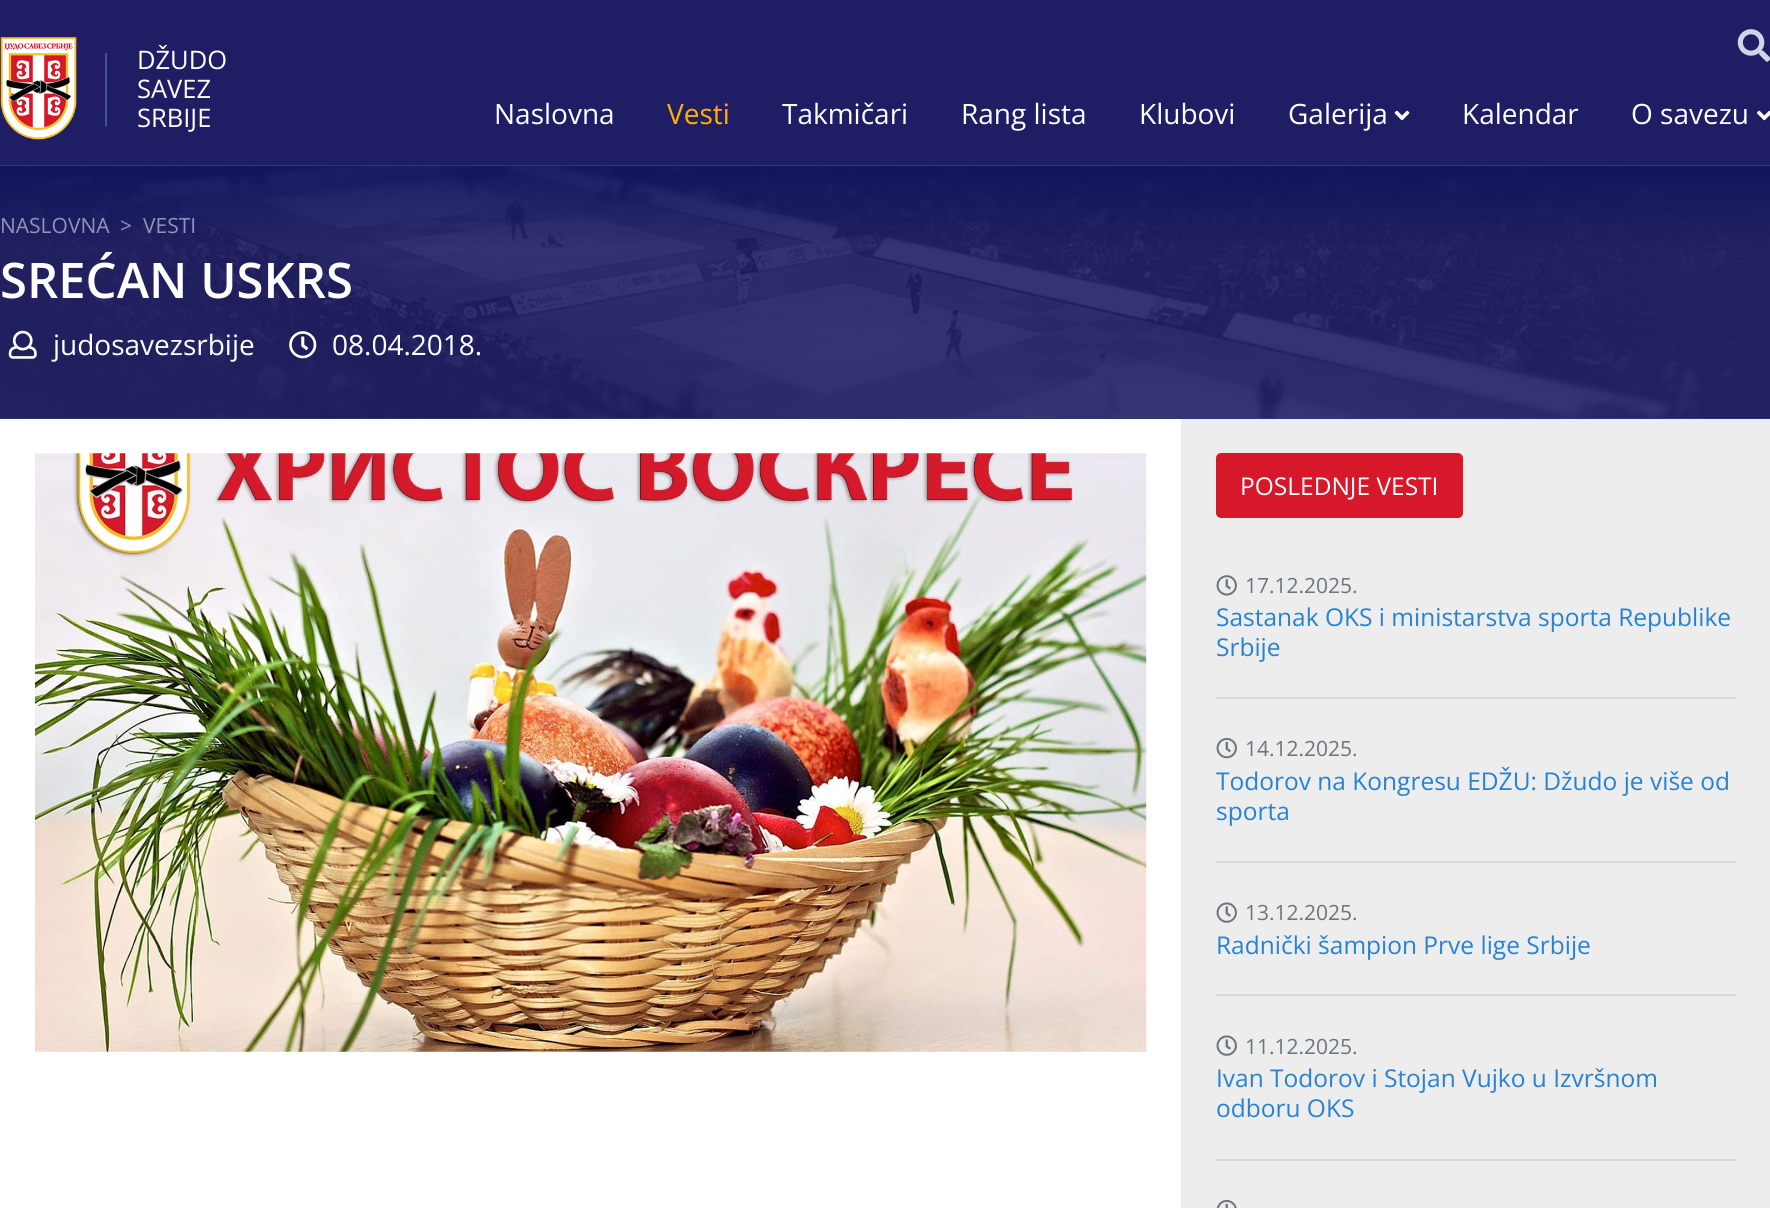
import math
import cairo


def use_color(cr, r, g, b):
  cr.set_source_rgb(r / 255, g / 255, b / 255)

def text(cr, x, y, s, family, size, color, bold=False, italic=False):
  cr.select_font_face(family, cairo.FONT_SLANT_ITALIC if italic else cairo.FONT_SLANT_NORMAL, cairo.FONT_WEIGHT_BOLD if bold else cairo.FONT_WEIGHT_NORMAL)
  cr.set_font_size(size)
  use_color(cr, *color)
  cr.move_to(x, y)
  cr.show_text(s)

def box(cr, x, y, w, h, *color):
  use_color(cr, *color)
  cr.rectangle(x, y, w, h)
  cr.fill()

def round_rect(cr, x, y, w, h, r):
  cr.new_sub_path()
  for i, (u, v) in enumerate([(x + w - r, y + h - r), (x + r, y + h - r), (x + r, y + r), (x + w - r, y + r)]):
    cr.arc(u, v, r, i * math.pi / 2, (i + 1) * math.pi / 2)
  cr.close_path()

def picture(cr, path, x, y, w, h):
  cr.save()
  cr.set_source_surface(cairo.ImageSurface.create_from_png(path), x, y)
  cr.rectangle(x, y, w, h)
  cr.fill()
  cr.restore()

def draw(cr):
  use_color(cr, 31, 30, 100)
  cr.paint()
  box(cr, 0, 165, 1770, 2, 53, 53, 116)
  picture(cr, "img_01.png", 0, 37, 77, 103)
  box(cr, 105, 53, 2, 73, 68, 84, 145)
  picture(cr, "img_02.png", 1737, 29, 33, 33)
  picture(cr, "img_03.png", 1394, 110, 16, 11)
  picture(cr, "img_04.png", 1757, 110, 13, 11)
  box(cr, 0, 418, 1181, 1, 52, 52, 116)
  picture(cr, "img_05.png", 0, 166, 1770, 253)
  gradient = cairo.LinearGradient(886, 166, 886, 252)
  gradient.add_color_stop_rgba(0, 0.027, 0.043, 0.345, 0.53)
  gradient.add_color_stop_rgba(0.01, 0.027, 0.043, 0.345, 0.53)
  gradient.add_color_stop_rgba(1, 0.027, 0.043, 0.345, 0)
  cr.set_source(gradient)
  cr.rectangle(0, 166, 1770, 78)
  cr.fill()
  picture(cr, "img_06.png", 8, 330, 29, 29)
  picture(cr, "img_07.png", 289, 331, 28, 28)
  box(cr, 0, 419, 1181, 789, 255, 255, 255)
  picture(cr, "img_08.png", 35, 453, 1112, 599)
  box(cr, 1181, 419, 589, 789, 237, 237, 237)
  box(cr, 1181, 418, 589, 1, 51, 51, 114)
  use_color(cr, 215, 24, 42)
  round_rect(cr, 1218, 455, 243, 61, 3)
  cr.fill_preserve()
  cr.set_line_width(4)
  cr.stroke()
  box(cr, 1216, 697, 520, 2, 216, 216, 216)
  picture(cr, "img_09.png", 1216, 575, 21, 21)
  box(cr, 1216, 861, 520, 2, 216, 216, 216)
  picture(cr, "img_10.png", 1216, 737, 21, 22)
  box(cr, 1216, 994, 520, 2, 216, 216, 216)
  picture(cr, "img_11.png", 1216, 902, 21, 21)
  box(cr, 1216, 1159, 520, 2, 216, 216, 216)
  picture(cr, "img_11.png", 1216, 1035, 21, 21)
  picture(cr, "img_12.png", 1216, 1199, 21, 9)
  text(cr, 137, 69, "DŽUDO", "Open Sans", 25.5, (255, 255, 255))
  text(cr, 137, 98, "SAVEZ", "Open Sans", 25.5, (255, 255, 255))
  text(cr, 137, 127, "SRBIJE", "Open Sans", 25.5, (255, 255, 255))
  text(cr, 494, 124, "Naslovna", "Open Sans", 28, (255, 255, 255))
  text(cr, 667, 124, "Vesti", "Open Sans", 28, (255, 175, 5))
  text(cr, 782, 124, "Takmičari", "Open Sans", 28, (255, 255, 255))
  text(cr, 961, 124, "Rang lista", "Open Sans", 28, (255, 255, 255))
  text(cr, 1139, 124, "Klubovi", "Open Sans", 28, (255, 255, 255))
  text(cr, 1288, 124, "Galerija", "Open Sans", 28, (255, 255, 255))
  text(cr, 1462, 124, "Kalendar", "Open Sans", 28, (255, 255, 255))
  text(cr, 1631, 124, "O savezu", "Open Sans", 28, (255, 255, 255))
  text(cr, 0, 233, "NASLOVNA", "Open Sans", 21, (143, 148, 185))
  text(cr, 120, 233, ">", "Open Sans", 21, (143, 148, 185))
  text(cr, 143, 233, "VESTI", "Open Sans", 21, (143, 148, 185))
  text(cr, 0, 298, "SREĆAN USKRS", "Open Sans SemiBold", 49, (255, 255, 255))
  text(cr, 53, 355, "judosavezsrbije", "Open Sans", 28, (255, 255, 255))
  text(cr, 332, 355, "08.04.2018.", "Open Sans", 28, (255, 255, 255))
  text(cr, 1240, 495, "POSLEDNJE VESTI", "Open Sans", 24.5, (255, 255, 255))
  text(cr, 1245, 593, "17.12.2025.", "Open Sans", 21, (108, 117, 125))
  text(cr, 1216, 626, "Sastanak OKS i ministarstva sporta Republike", "Open Sans", 24.5, (39, 130, 210))
  text(cr, 1216, 656, "Srbije", "Open Sans", 24.5, (39, 130, 210))
  text(cr, 1245, 756, "14.12.2025.", "Open Sans", 21, (108, 117, 125))
  text(cr, 1216, 790, "Todorov na Kongresu EDŽU: Džudo je više od", "Open Sans", 24.5, (39, 130, 210))
  text(cr, 1216, 820, "sporta", "Open Sans", 24.5, (39, 130, 210))
  text(cr, 1245, 920, "13.12.2025.", "Open Sans", 21, (108, 117, 125))
  text(cr, 1216, 954, "Radnički šampion Prve lige Srbije", "Open Sans", 24.5, (39, 130, 210))
  text(cr, 1245, 1054, "11.12.2025.", "Open Sans", 21, (108, 117, 125))
  text(cr, 1216, 1087, "Ivan Todorov i Stojan Vujko u Izvršnom", "Open Sans", 24.5, (39, 130, 210))
  text(cr, 1216, 1117, "odboru OKS", "Open Sans", 24.5, (39, 130, 210))


surface = cairo.ImageSurface(cairo.FORMAT_RGB24, 1770, 1208)
cr = cairo.Context(surface)
options = cairo.FontOptions()
options.set_hint_metrics(cairo.HINT_METRICS_OFF)
options.set_hint_style(cairo.HINT_STYLE_NONE)
cr.set_font_options(options)
cr.set_miter_limit(4)
draw(cr)
surface.write_to_png("out.png")
